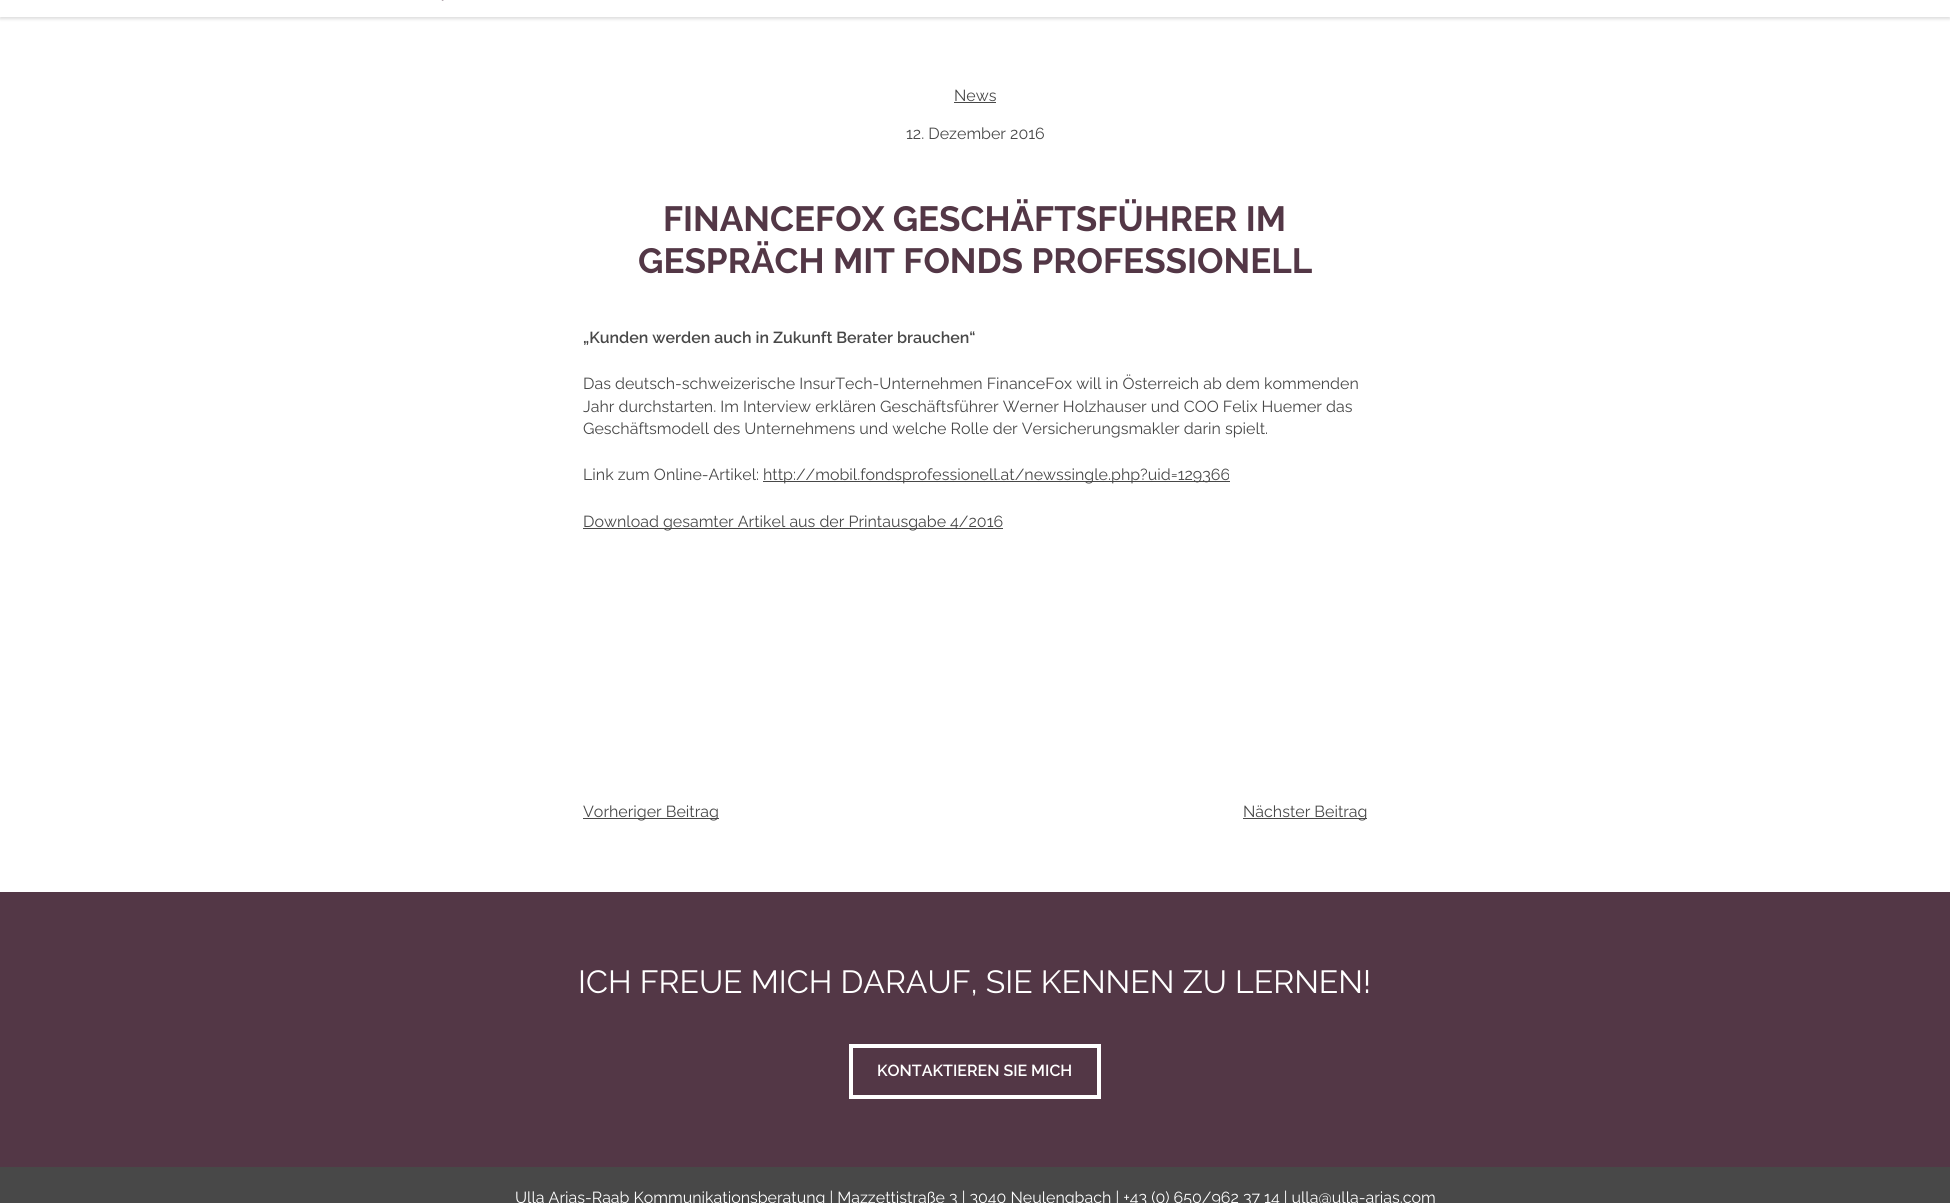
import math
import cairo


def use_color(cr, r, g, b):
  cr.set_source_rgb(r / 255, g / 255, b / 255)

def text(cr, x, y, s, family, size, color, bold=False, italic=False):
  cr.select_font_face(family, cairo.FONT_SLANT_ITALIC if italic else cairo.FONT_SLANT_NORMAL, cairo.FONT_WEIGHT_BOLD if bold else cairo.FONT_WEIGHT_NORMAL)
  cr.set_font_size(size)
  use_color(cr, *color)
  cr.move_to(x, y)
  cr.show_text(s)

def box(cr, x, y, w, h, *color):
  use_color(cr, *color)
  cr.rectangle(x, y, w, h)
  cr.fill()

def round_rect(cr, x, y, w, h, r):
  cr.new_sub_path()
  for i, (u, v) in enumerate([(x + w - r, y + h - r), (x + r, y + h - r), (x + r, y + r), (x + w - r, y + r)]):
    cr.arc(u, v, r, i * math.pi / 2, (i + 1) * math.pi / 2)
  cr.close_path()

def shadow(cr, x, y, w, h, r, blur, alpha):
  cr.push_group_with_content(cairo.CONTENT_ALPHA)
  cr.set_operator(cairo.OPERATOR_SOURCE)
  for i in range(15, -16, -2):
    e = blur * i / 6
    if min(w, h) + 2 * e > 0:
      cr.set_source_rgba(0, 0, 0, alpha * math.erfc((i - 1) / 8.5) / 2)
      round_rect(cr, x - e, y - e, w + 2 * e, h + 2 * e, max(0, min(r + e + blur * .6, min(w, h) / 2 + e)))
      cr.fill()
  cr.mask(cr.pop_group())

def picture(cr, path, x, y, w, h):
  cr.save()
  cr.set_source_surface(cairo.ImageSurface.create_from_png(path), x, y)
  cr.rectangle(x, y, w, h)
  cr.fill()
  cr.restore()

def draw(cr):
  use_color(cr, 255, 255, 255)
  cr.paint()
  cr.save()
  cr.rectangle(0, 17, 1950, 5)
  cr.clip()
  use_color(cr, 222, 222, 222)
  shadow(cr, 0, -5, 1950, 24, 0, 1.5, 1)
  cr.restore()
  picture(cr, "img_01.png", 441, 0, 3, 1)
  box(cr, 954, 102, 42, 1, 72, 72, 72)
  box(cr, 763, 481, 467, 1, 72, 72, 72)
  box(cr, 583, 528, 420, 1, 72, 72, 72)
  box(cr, 583, 818, 136, 1, 72, 72, 72)
  box(cr, 1243, 818, 124, 1, 72, 72, 72)
  box(cr, 0, 892, 1950, 275, 83, 55, 70)
  cr.rectangle(851, 1046, 248, 51)
  use_color(cr, 255, 255, 255)
  cr.set_line_width(4)
  cr.stroke()
  box(cr, 0, 1167, 1950, 36, 72, 72, 72)
  text(cr, 954, 101, "News", "Raleway Thin", 16, (72, 72, 72))
  text(cr, 906, 139, "12. Dezember 2016", "Raleway Thin", 16, (72, 72, 72))
  text(cr, 663, 231, "FINANCEFOX GESCHÄFTSFÜHRER IM", "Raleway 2 Thin", 35, (83, 55, 70))
  text(cr, 638, 273, "GESPRÄCH MIT FONDS PROFESSIONELL", "Raleway 2 Thin", 35, (83, 55, 70))
  text(cr, 583, 343, "„Kunden werden auch in Zukunft Berater brauchen“", "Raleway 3 Thin", 16, (72, 72, 72))
  text(cr, 583, 389, "Das deutsch-schweizerische InsurTech-Unternehmen FinanceFox will in Österreich ab dem kommenden", "Raleway Thin", 16, (72, 72, 72))
  text(cr, 583, 412, "Jahr durchstarten. Im Interview erklären Geschäftsführer Werner Holzhauser und COO Felix Huemer das", "Raleway Thin", 16, (72, 72, 72))
  text(cr, 583, 434, "Geschäftsmodell des Unternehmens und welche Rolle der Versicherungsmakler darin spielt.", "Raleway Thin", 16, (72, 72, 72))
  text(cr, 583, 480, "Link zum Online-Artikel:", "Raleway Thin", 16, (72, 72, 72))
  text(cr, 763, 480, "http://mobil.fondsprofessionell.at/newssingle.php?uid=129366", "Raleway Thin", 16, (72, 72, 72))
  text(cr, 583, 527, "Download gesamter Artikel aus der Printausgabe 4/2016", "Raleway Thin", 16, (72, 72, 72))
  text(cr, 583, 817, "Vorheriger Beitrag", "Raleway Thin", 16, (72, 72, 72))
  text(cr, 1243, 817, "Nächster Beitrag", "Raleway Thin", 16, (72, 72, 72))
  text(cr, 578, 993, "ICH FREUE MICH DARAUF, SIE KENNEN ZU LERNEN!", "Raleway Thin", 32, (255, 255, 255))
  text(cr, 877, 1076, "KONTAKTIEREN SIE MICH", "Raleway 3 Thin", 16, (255, 255, 255))
  text(cr, 515, 1203, "Ulla Arias-Raab Kommunikationsberatung | Mazzettistraße 3 | 3040 Neulengbach | +43 (0) 650/962 37 14 | ulla@ulla-arias.com", "Raleway Thin", 16, (255, 255, 255))


surface = cairo.ImageSurface(cairo.FORMAT_RGB24, 1950, 1203)
cr = cairo.Context(surface)
options = cairo.FontOptions()
options.set_hint_metrics(cairo.HINT_METRICS_OFF)
options.set_hint_style(cairo.HINT_STYLE_NONE)
cr.set_font_options(options)
cr.set_miter_limit(4)
draw(cr)
surface.write_to_png("out.png")
